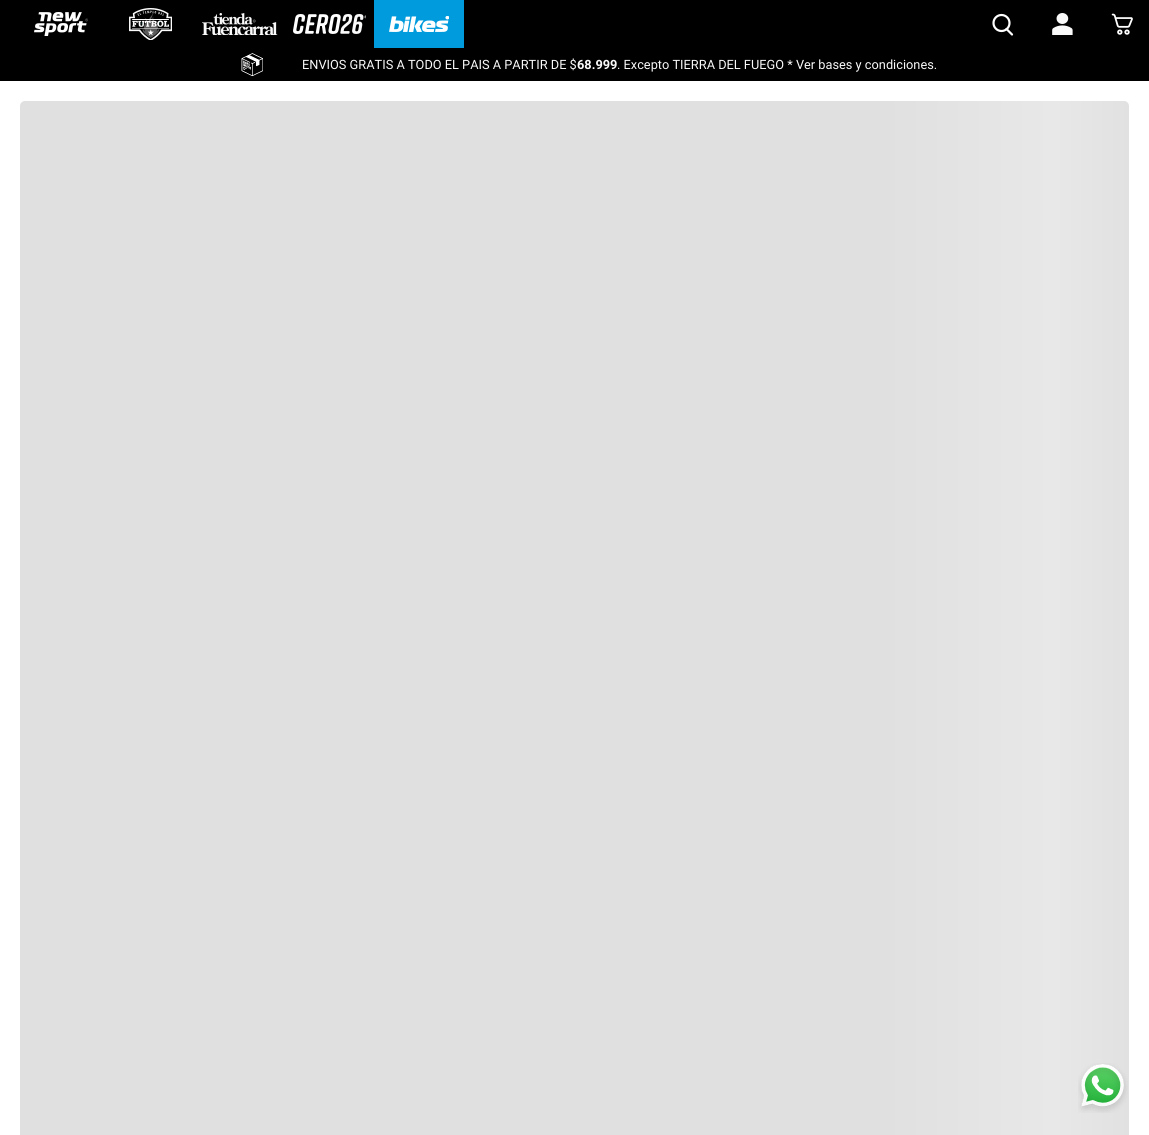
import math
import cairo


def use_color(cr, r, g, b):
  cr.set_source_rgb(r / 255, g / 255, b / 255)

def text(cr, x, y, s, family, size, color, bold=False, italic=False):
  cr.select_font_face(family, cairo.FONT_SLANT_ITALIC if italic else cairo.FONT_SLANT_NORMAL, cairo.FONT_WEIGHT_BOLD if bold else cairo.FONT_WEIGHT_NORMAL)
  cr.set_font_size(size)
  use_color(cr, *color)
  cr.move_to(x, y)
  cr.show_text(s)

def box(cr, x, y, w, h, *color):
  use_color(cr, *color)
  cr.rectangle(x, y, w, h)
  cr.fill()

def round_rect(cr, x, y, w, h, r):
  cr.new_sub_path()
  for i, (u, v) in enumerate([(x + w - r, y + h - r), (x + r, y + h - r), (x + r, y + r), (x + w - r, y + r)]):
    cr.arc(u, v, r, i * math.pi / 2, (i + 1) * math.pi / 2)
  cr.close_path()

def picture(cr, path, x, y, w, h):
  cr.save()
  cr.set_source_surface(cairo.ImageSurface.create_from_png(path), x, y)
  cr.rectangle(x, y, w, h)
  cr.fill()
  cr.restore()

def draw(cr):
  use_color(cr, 255, 255, 255)
  cr.paint()
  box(cr, 0, 0, 1149, 81, 0, 0, 0)
  picture(cr, "img_01.png", 34, 12, 54, 24)
  picture(cr, "img_02.png", 129, 8, 43, 32)
  picture(cr, "img_03.png", 202, 13, 76, 22)
  picture(cr, "img_04.png", 293, 14, 73, 20)
  box(cr, 374, 0, 90, 48, 0, 155, 221)
  picture(cr, "img_05.png", 389, 16, 60, 16)
  cr.arc(1001.5, 23, 8, 0, 2 * math.pi)
  use_color(cr, 255, 255, 255)
  cr.set_line_width(2.2)
  cr.stroke()
  cr.new_path()
  cr.move_to(1012, 34.5)
  cr.line_to(1006.5, 29)
  cr.set_line_cap(cairo.LINE_CAP_ROUND)
  cr.set_line_join(cairo.LINE_JOIN_ROUND)
  cr.stroke()
  picture(cr, "img_06.png", 1052, 13, 21, 22)
  picture(cr, "img_07.png", 1111, 13, 22, 22)
  picture(cr, "img_08.png", 241, 53, 22, 23)
  gradient = cairo.LinearGradient(20, 669, 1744, 669)
  gradient.add_color_stop_rgba(0, 0.878, 0.878, 0.878, 1)
  gradient.add_color_stop_rgba(0.5, 0.878, 0.878, 0.878, 1)
  gradient.add_color_stop_rgba(0.6, 0.91, 0.91, 0.91, 1)
  gradient.add_color_stop_rgba(0.65, 0.878, 0.878, 0.878, 1)
  gradient.add_color_stop_rgba(1, 0.878, 0.878, 0.878, 1)
  cr.set_source(gradient)
  round_rect(cr, 20, 101, 1109, 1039, 5)
  cr.fill()
  picture(cr, "img_09.png", 1078, 1063, 50, 50)
  text(cr, 302, 69, "ENVIOS GRATIS A TODO EL PAIS A PARTIR DE $", "Roboto", 12.8, (250, 250, 250))
  text(cr, 577, 69, "68.999", "Roboto", 12.8, (250, 250, 250), bold=True)
  text(cr, 617, 69, ". Excepto TIERRA DEL FUEGO * Ver bases y condiciones.", "Roboto", 12.8, (250, 250, 250))


surface = cairo.ImageSurface(cairo.FORMAT_RGB24, 1149, 1135)
cr = cairo.Context(surface)
options = cairo.FontOptions()
options.set_hint_metrics(cairo.HINT_METRICS_OFF)
options.set_hint_style(cairo.HINT_STYLE_NONE)
cr.set_font_options(options)
cr.set_miter_limit(4)
draw(cr)
surface.write_to_png("out.png")
